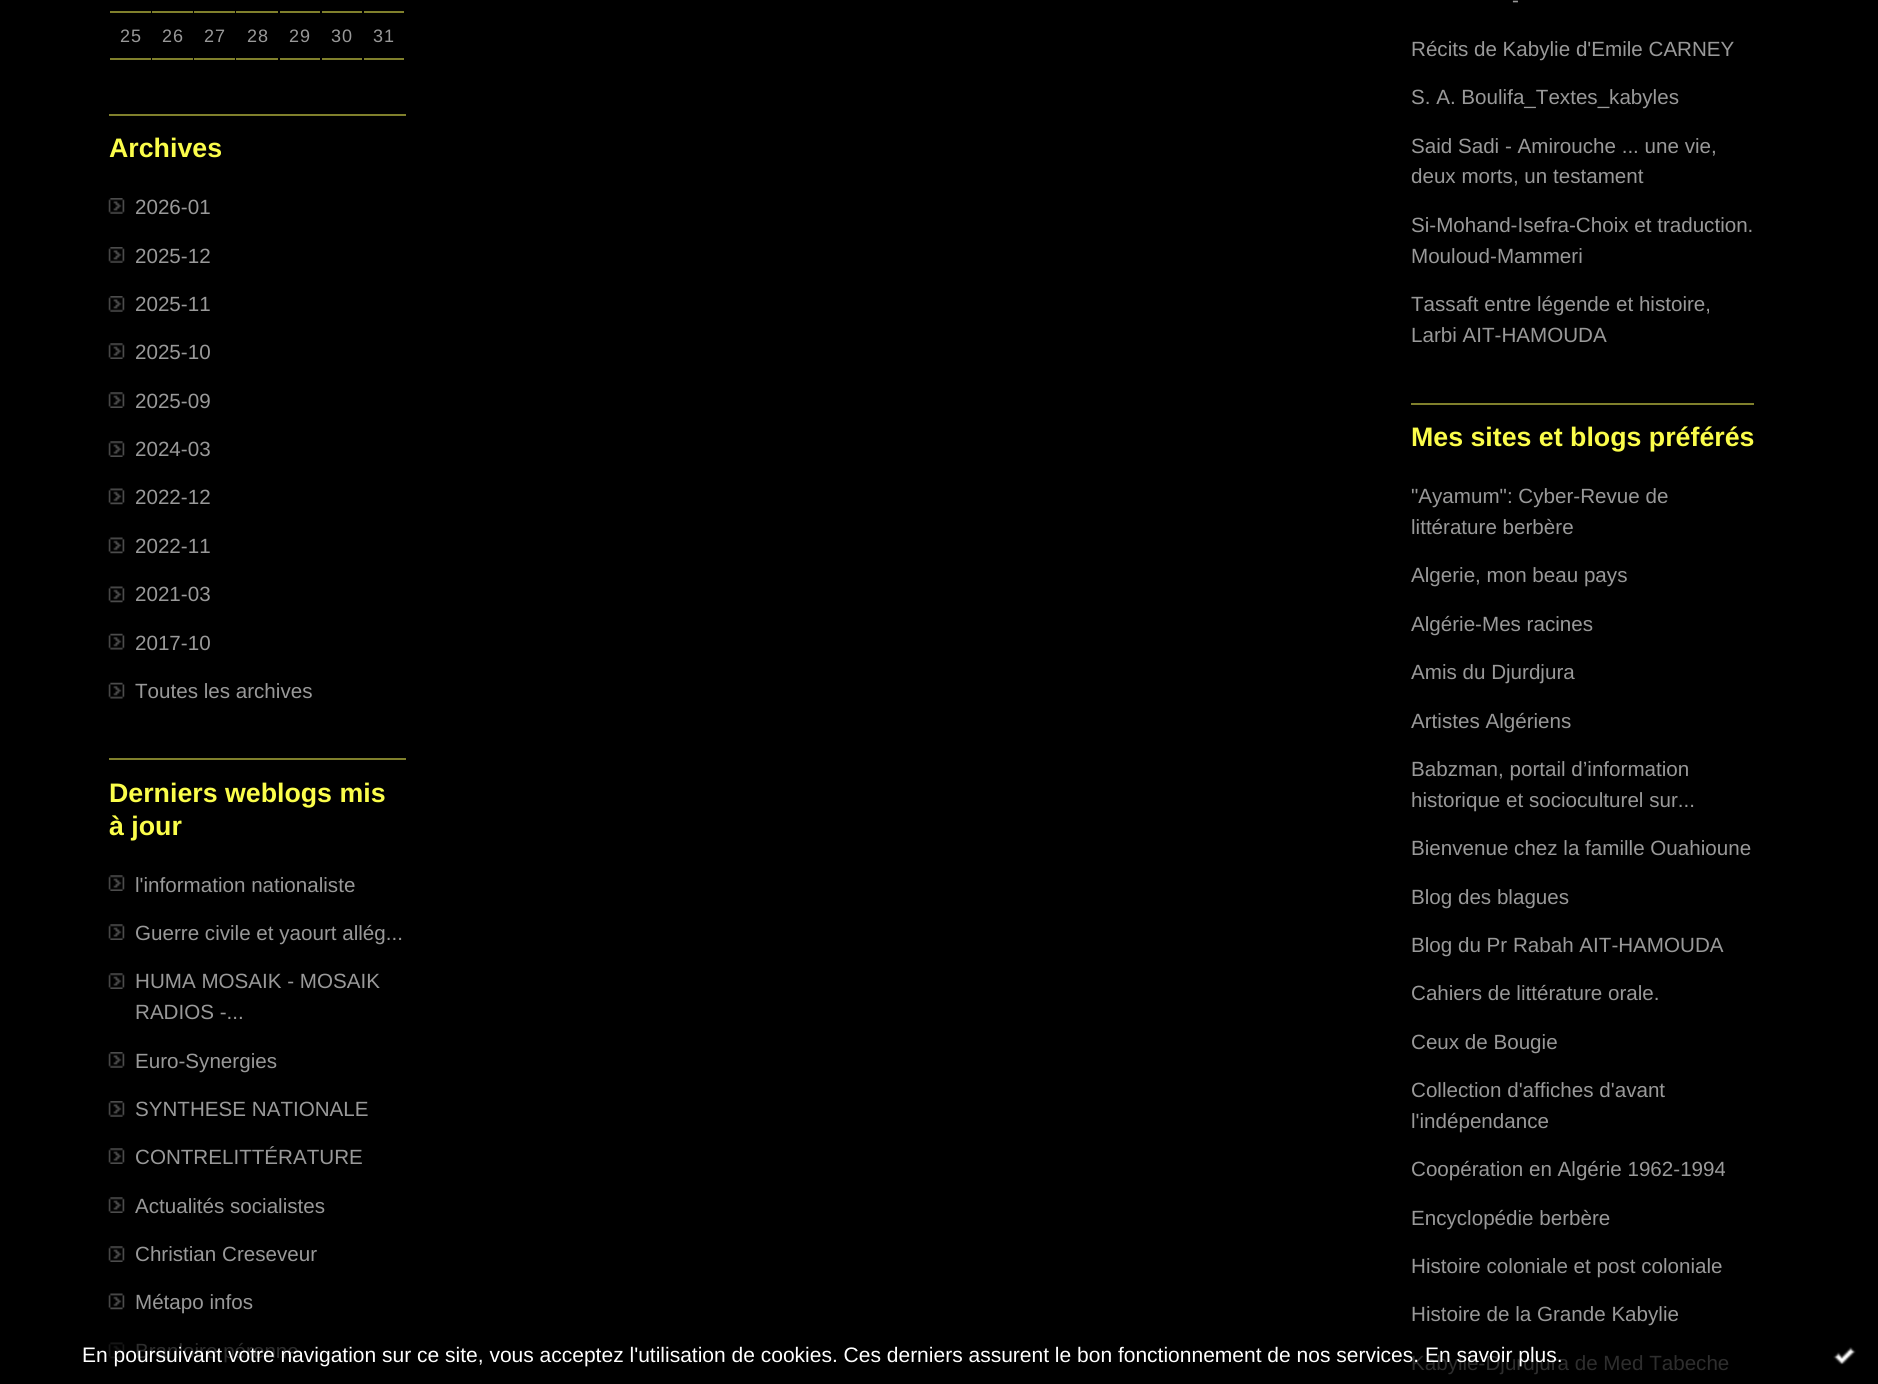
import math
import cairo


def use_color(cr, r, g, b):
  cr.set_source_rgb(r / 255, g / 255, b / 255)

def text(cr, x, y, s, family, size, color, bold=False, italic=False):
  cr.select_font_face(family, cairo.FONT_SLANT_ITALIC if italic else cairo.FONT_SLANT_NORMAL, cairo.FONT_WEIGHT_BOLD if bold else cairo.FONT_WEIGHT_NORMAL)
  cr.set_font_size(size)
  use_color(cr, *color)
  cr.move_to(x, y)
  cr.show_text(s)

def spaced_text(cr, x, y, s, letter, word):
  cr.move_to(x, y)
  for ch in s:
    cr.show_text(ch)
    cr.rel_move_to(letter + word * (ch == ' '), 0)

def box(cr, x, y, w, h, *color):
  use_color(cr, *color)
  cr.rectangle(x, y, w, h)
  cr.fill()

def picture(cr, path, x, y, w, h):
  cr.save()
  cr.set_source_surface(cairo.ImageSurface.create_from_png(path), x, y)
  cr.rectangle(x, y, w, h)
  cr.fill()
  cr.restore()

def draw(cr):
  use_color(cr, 0, 0, 0)
  cr.paint()
  box(cr, 109, 114, 297, 2, 128, 128, 44)
  box(cr, 110, 11, 41, 2, 128, 128, 44)
  box(cr, 152, 11, 41, 2, 128, 128, 44)
  box(cr, 194, 11, 41, 2, 128, 128, 44)
  box(cr, 236, 11, 42, 2, 128, 128, 44)
  box(cr, 280, 11, 40, 2, 128, 128, 44)
  box(cr, 322, 11, 40, 2, 128, 128, 44)
  box(cr, 364, 11, 40, 2, 128, 128, 44)
  box(cr, 110, 58, 41, 2, 128, 128, 44)
  box(cr, 152, 58, 41, 2, 128, 128, 44)
  box(cr, 194, 58, 41, 2, 128, 128, 44)
  box(cr, 236, 58, 42, 2, 128, 128, 44)
  box(cr, 280, 58, 40, 2, 128, 128, 44)
  box(cr, 322, 58, 40, 2, 128, 128, 44)
  box(cr, 364, 58, 40, 2, 128, 128, 44)
  box(cr, 109, 758, 297, 2, 128, 128, 44)
  picture(cr, "img_01.png", 108, 198, 17, 16)
  picture(cr, "img_01.png", 108, 247, 17, 16)
  picture(cr, "img_01.png", 108, 296, 17, 16)
  picture(cr, "img_02.png", 108, 343, 17, 16)
  picture(cr, "img_02.png", 108, 392, 17, 16)
  picture(cr, "img_02.png", 108, 441, 17, 16)
  picture(cr, "img_03.png", 108, 488, 17, 17)
  picture(cr, "img_03.png", 108, 537, 17, 17)
  picture(cr, "img_03.png", 108, 586, 17, 17)
  picture(cr, "img_04.png", 108, 633, 17, 17)
  picture(cr, "img_04.png", 108, 682, 17, 17)
  picture(cr, "img_02.png", 108, 875, 17, 16)
  picture(cr, "img_02.png", 108, 924, 17, 16)
  picture(cr, "img_02.png", 108, 973, 17, 16)
  picture(cr, "img_01.png", 108, 1052, 17, 16)
  picture(cr, "img_01.png", 108, 1101, 17, 16)
  picture(cr, "img_02.png", 108, 1148, 17, 16)
  picture(cr, "img_02.png", 108, 1197, 17, 16)
  picture(cr, "img_02.png", 108, 1246, 17, 16)
  picture(cr, "img_03.png", 108, 1293, 17, 17)
  picture(cr, "img_05.png", 108, 1342, 17, 17)
  box(cr, 1411, 403, 343, 2, 128, 128, 44)
  picture(cr, "img_06.png", 1833, 1347, 23, 18)
  cr.select_font_face("Liberation Sans")
  cr.set_font_size(18)
  use_color(cr, 153, 153, 153)
  spaced_text(cr, 120, 42, "25", 1, 0)
  spaced_text(cr, 162, 42, "26", 1, 0)
  spaced_text(cr, 204, 42, "27", 1, 0)
  spaced_text(cr, 247, 42, "28", 1, 0)
  spaced_text(cr, 289, 42, "29", 1, 0)
  spaced_text(cr, 331, 42, "30", 1, 0)
  spaced_text(cr, 373, 42, "31", 1, 0)
  text(cr, 109, 157, "Archives", "Liberation Sans", 26.75, (251, 253, 74), bold=True)
  text(cr, 135, 214, "2026-01", "Liberation Sans", 20.6, (153, 153, 153))
  text(cr, 135, 263, "2025-12", "Liberation Sans", 20.6, (153, 153, 153))
  text(cr, 135, 311, "2025-11", "Liberation Sans", 20.6, (153, 153, 153))
  text(cr, 135, 359, "2025-10", "Liberation Sans", 20.6, (153, 153, 153))
  text(cr, 135, 408, "2025-09", "Liberation Sans", 20.6, (153, 153, 153))
  text(cr, 135, 456, "2024-03", "Liberation Sans", 20.6, (153, 153, 153))
  text(cr, 135, 504, "2022-12", "Liberation Sans", 20.6, (153, 153, 153))
  text(cr, 135, 553, "2022-11", "Liberation Sans", 20.6, (153, 153, 153))
  text(cr, 135, 601, "2021-03", "Liberation Sans", 20.6, (153, 153, 153))
  text(cr, 135, 650, "2017-10", "Liberation Sans", 20.6, (153, 153, 153))
  text(cr, 135, 698, "Toutes les archives", "Liberation Sans", 20.6, (153, 153, 153))
  text(cr, 109, 802, "Derniers weblogs mis", "Liberation Sans", 26.75, (251, 253, 74), bold=True)
  text(cr, 109, 835, "à jour", "Liberation Sans", 26.75, (251, 253, 74), bold=True)
  text(cr, 135, 892, "l'information nationaliste", "Liberation Sans", 20.6, (153, 153, 153))
  text(cr, 135, 940, "Guerre civile et yaourt allég...", "Liberation Sans", 20.6, (153, 153, 153))
  text(cr, 135, 988, "HUMA MOSAIK - MOSAIK", "Liberation Sans", 20.6, (153, 153, 153))
  text(cr, 135, 1019, "RADIOS -...", "Liberation Sans", 20.6, (153, 153, 153))
  text(cr, 135, 1068, "Euro-Synergies", "Liberation Sans", 20.6, (153, 153, 153))
  text(cr, 135, 1116, "SYNTHESE NATIONALE", "Liberation Sans", 20.6, (153, 153, 153))
  text(cr, 135, 1164, "CONTRELITTÉRATURE", "Liberation Sans", 20.6, (153, 153, 153))
  text(cr, 135, 1213, "Actualités socialistes", "Liberation Sans", 20.6, (153, 153, 153))
  text(cr, 135, 1261, "Christian Creseveur", "Liberation Sans", 20.6, (153, 153, 153))
  text(cr, 135, 1309, "Métapo infos", "Liberation Sans", 20.6, (153, 153, 153))
  text(cr, 135, 1358, "Branloire pérenne", "Liberation Sans", 20.6, (46, 46, 46))
  text(cr, 1512, 7, "-", "Liberation Sans", 20.6, (153, 153, 153))
  text(cr, 1411, 56, "Récits de Kabylie d'Emile CARNEY", "Liberation Sans", 20.6, (153, 153, 153))
  text(cr, 1411, 104, "S. A. Boulifa_Textes_kabyles", "Liberation Sans", 20.6, (153, 153, 153))
  text(cr, 1411, 153, "Said Sadi - Amirouche ... une vie,", "Liberation Sans", 20.6, (153, 153, 153))
  text(cr, 1411, 183, "deux morts, un testament", "Liberation Sans", 20.6, (153, 153, 153))
  text(cr, 1411, 232, "Si-Mohand-Isefra-Choix et traduction.", "Liberation Sans", 20.6, (153, 153, 153))
  text(cr, 1411, 263, "Mouloud-Mammeri", "Liberation Sans", 20.6, (153, 153, 153))
  text(cr, 1411, 311, "Tassaft entre légende et histoire,", "Liberation Sans", 20.6, (153, 153, 153))
  text(cr, 1411, 342, "Larbi AIT-HAMOUDA", "Liberation Sans", 20.6, (153, 153, 153))
  text(cr, 1411, 446, "Mes sites et blogs préférés", "Liberation Sans", 26.75, (251, 253, 74), bold=True)
  text(cr, 1411, 503, "\"Ayamum\": Cyber-Revue de", "Liberation Sans", 20.6, (153, 153, 153))
  text(cr, 1411, 534, "littérature berbère", "Liberation Sans", 20.6, (153, 153, 153))
  text(cr, 1411, 582, "Algerie, mon beau pays", "Liberation Sans", 20.6, (153, 153, 153))
  text(cr, 1411, 631, "Algérie-Mes racines", "Liberation Sans", 20.6, (153, 153, 153))
  text(cr, 1411, 679, "Amis du Djurdjura", "Liberation Sans", 20.6, (153, 153, 153))
  text(cr, 1411, 728, "Artistes Algériens", "Liberation Sans", 20.6, (153, 153, 153))
  text(cr, 1411, 776, "Babzman, portail d’information", "Liberation Sans", 20.6, (153, 153, 153))
  text(cr, 1411, 807, "historique et socioculturel sur...", "Liberation Sans", 20.6, (153, 153, 153))
  text(cr, 1411, 855, "Bienvenue chez la famille Ouahioune", "Liberation Sans", 20.6, (153, 153, 153))
  text(cr, 1411, 904, "Blog des blagues", "Liberation Sans", 20.6, (153, 153, 153))
  text(cr, 1411, 952, "Blog du Pr Rabah AIT-HAMOUDA", "Liberation Sans", 20.6, (153, 153, 153))
  text(cr, 1411, 1000, "Cahiers de littérature orale.", "Liberation Sans", 20.6, (153, 153, 153))
  text(cr, 1411, 1049, "Ceux de Bougie", "Liberation Sans", 20.6, (153, 153, 153))
  text(cr, 1411, 1097, "Collection d'affiches d'avant", "Liberation Sans", 20.6, (153, 153, 153))
  text(cr, 1411, 1128, "l'indépendance", "Liberation Sans", 20.6, (153, 153, 153))
  text(cr, 1411, 1176, "Coopération en Algérie 1962-1994", "Liberation Sans", 20.6, (153, 153, 153))
  text(cr, 1411, 1225, "Encyclopédie berbère", "Liberation Sans", 20.6, (153, 153, 153))
  text(cr, 1411, 1273, "Histoire coloniale et post coloniale", "Liberation Sans", 20.6, (153, 153, 153))
  text(cr, 1411, 1321, "Histoire de la Grande Kabylie", "Liberation Sans", 20.6, (153, 153, 153))
  text(cr, 1411, 1370, "Kabylie-Djurdjura de Med Tabeche", "Liberation Sans", 20.6, (46, 46, 46))
  text(cr, 82, 1362, "En poursuivant votre navigation sur ce site, vous acceptez l'utilisation de cookies. Ces derniers assurent le bon fonctionnement de nos services. En savoir plus.", "Liberation Sans", 21, (255, 255, 255))


surface = cairo.ImageSurface(cairo.FORMAT_RGB24, 1878, 1384)
cr = cairo.Context(surface)
options = cairo.FontOptions()
options.set_hint_metrics(cairo.HINT_METRICS_OFF)
options.set_hint_style(cairo.HINT_STYLE_NONE)
cr.set_font_options(options)
cr.set_miter_limit(4)
draw(cr)
surface.write_to_png("out.png")
